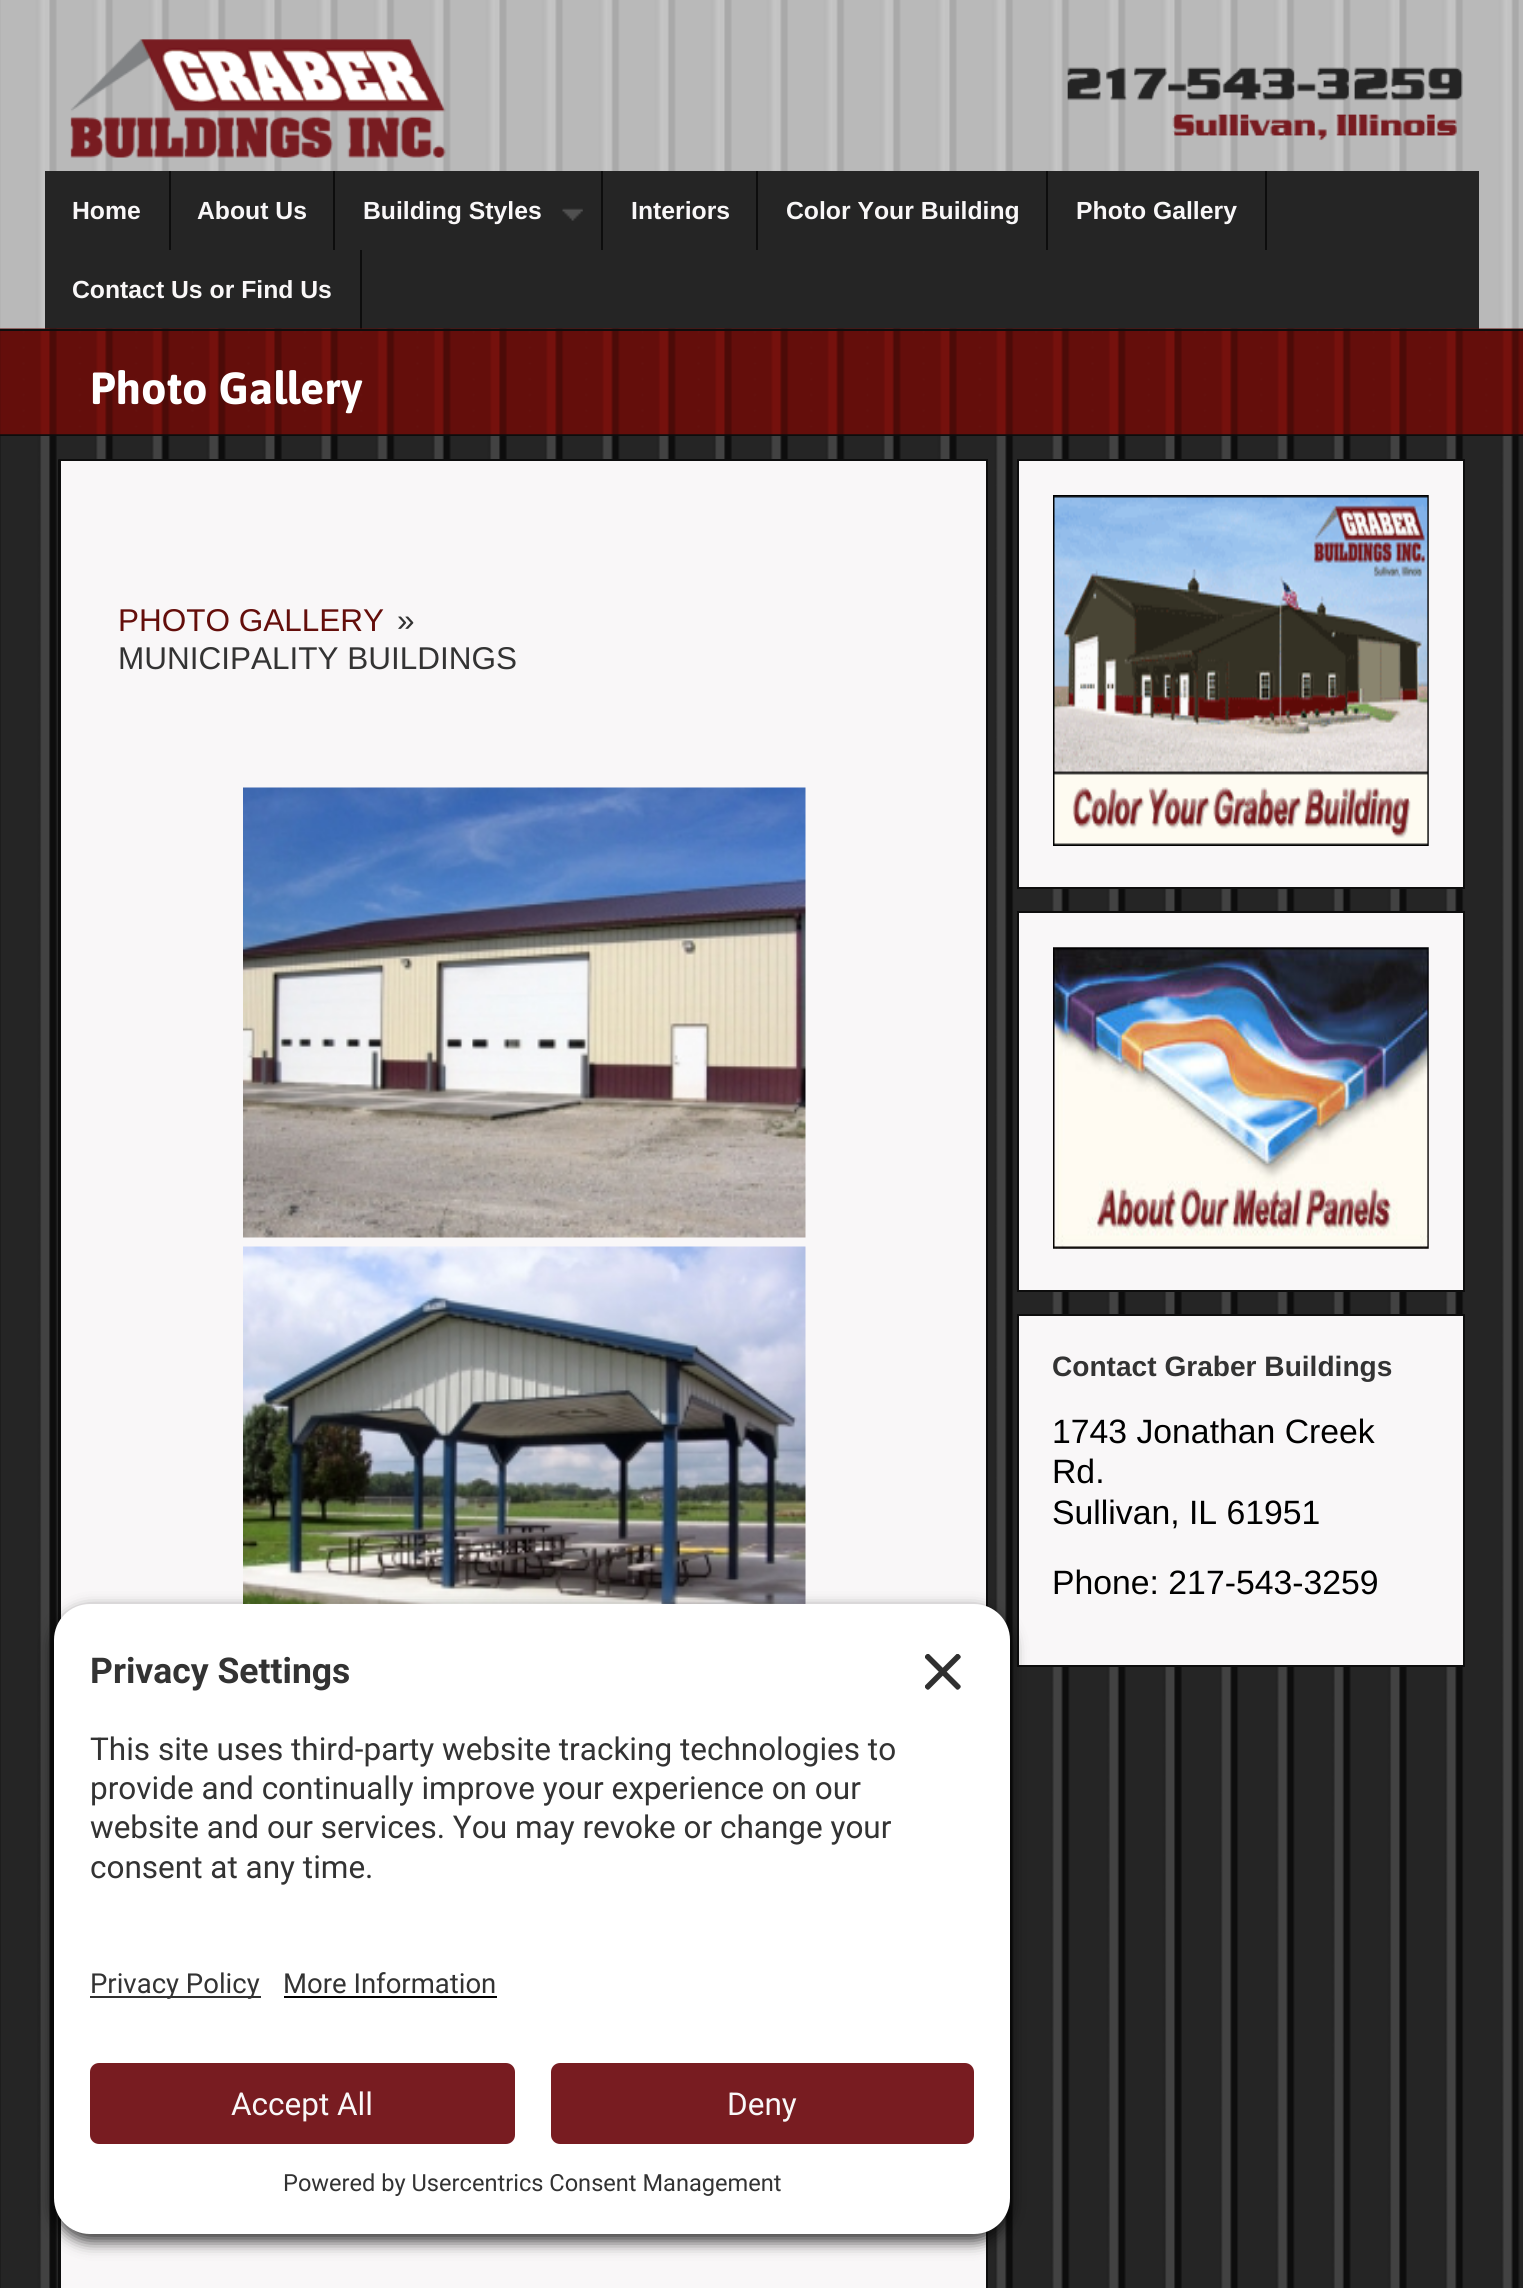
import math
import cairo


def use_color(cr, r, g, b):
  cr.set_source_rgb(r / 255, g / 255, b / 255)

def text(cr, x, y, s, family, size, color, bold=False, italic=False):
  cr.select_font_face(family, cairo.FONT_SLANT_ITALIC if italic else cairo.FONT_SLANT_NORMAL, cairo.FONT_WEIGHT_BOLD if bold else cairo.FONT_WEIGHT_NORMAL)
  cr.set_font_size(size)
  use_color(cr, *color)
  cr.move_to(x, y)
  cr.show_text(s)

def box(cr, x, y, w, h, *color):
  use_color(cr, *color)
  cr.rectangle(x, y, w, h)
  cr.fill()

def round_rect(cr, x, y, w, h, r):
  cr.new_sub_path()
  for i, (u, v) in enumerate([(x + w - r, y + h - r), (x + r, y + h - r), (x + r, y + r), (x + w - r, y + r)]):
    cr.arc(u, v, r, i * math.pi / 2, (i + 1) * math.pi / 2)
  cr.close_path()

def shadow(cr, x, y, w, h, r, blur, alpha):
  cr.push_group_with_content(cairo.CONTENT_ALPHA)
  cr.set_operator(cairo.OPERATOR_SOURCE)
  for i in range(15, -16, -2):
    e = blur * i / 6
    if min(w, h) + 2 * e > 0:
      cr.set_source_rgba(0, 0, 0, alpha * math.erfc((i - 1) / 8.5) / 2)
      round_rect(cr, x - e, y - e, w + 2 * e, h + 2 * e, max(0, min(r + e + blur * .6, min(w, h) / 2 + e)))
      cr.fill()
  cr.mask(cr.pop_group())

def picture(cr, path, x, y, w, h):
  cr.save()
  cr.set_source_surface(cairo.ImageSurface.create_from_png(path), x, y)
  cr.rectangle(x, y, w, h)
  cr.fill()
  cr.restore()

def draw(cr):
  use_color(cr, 185, 185, 185)
  cr.paint()
  picture(cr, "img_01.png", 0, 0, 1519, 329)
  picture(cr, "img_02.png", 70, 39, 1393, 119)
  box(cr, 45, 171, 1434, 158, 37, 37, 37)
  box(cr, 169, 171, 2, 79, 13, 13, 13)
  box(cr, 333, 171, 2, 79, 13, 13, 13)
  box(cr, 601, 171, 2, 79, 13, 13, 13)
  picture(cr, "img_03.png", 562, 208, 21, 13)
  box(cr, 756, 171, 2, 79, 13, 13, 13)
  box(cr, 1046, 171, 2, 79, 13, 13, 13)
  box(cr, 1265, 171, 2, 79, 13, 13, 13)
  box(cr, 360, 250, 2, 79, 13, 13, 13)
  box(cr, 0, 434, 1523, 2, 13, 13, 13)
  picture(cr, "img_04.png", 0, 328, 1523, 107)
  box(cr, 0, 329, 1523, 2, 13, 13, 13)
  picture(cr, "img_05.png", 0, 436, 1523, 1852)
  box(cr, 61, 461, 925, 1827, 249, 247, 248)
  box(cr, 59, 459, 929, 2, 13, 13, 13)
  cr.new_path()
  cr.move_to(988, 459)
  cr.line_to(988, 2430)
  cr.line_to(986, 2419)
  cr.line_to(986, 461)
  cr.close_path()
  cr.fill()
  cr.new_path()
  cr.move_to(58, 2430)
  cr.line_to(58, 459)
  cr.line_to(61, 461)
  cr.line_to(61, 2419)
  cr.close_path()
  cr.fill()
  picture(cr, "img_06.png", 243, 787, 563, 451)
  picture(cr, "img_07.png", 243, 1246, 563, 358)
  use_color(cr, 249, 247, 248)
  cr.rectangle(1018, 460, 446, 428)
  cr.fill_preserve()
  use_color(cr, 13, 13, 13)
  cr.stroke()
  picture(cr, "img_08.png", 1053, 495, 376, 351)
  use_color(cr, 249, 247, 248)
  cr.rectangle(1018, 912, 446, 379)
  cr.fill_preserve()
  use_color(cr, 13, 13, 13)
  cr.stroke()
  picture(cr, "img_09.png", 1053, 947, 376, 302)
  use_color(cr, 249, 247, 248)
  cr.rectangle(1018, 1315, 446, 351)
  cr.fill_preserve()
  use_color(cr, 13, 13, 13)
  cr.stroke()
  use_color(cr, 0, 0, 0)
  shadow(cr, 54, 1611, 956, 630, 36, 8, 0.8)
  use_color(cr, 255, 255, 255)
  cr.new_path()
  cr.move_to(90, 1604)
  cr.line_to(974, 1604)
  cr.curve_to(994, 1604, 1010, 1620, 1010, 1640)
  cr.line_to(1010, 1933)
  cr.line_to(54, 1933)
  cr.line_to(54, 1640)
  cr.curve_to(54, 1620, 70, 1604, 90, 1604)
  cr.close_path()
  cr.fill()
  picture(cr, "img_10.png", 925, 1654, 36, 36)
  cr.new_path()
  cr.move_to(54, 1933)
  cr.line_to(1010, 1933)
  cr.line_to(1010, 2198)
  cr.curve_to(1010, 2218, 994, 2234, 974, 2234)
  cr.line_to(90, 2234)
  cr.curve_to(70, 2234, 54, 2218, 54, 2198)
  cr.close_path()
  cr.fill()
  box(cr, 90, 1996, 171, 2, 48, 48, 48)
  box(cr, 284, 1996, 213, 2, 0, 0, 0)
  use_color(cr, 120, 28, 33)
  round_rect(cr, 90, 2063, 425, 81, 9)
  cr.fill()
  round_rect(cr, 551, 2063, 423, 81, 9)
  cr.fill()
  text(cr, 72, 219, "Home", "Liberation Sans", 24.75, (249, 247, 248), bold=True)
  text(cr, 197, 219, "About Us", "Liberation Sans", 24.75, (249, 247, 248), bold=True)
  text(cr, 363, 219, "Building Styles", "Liberation Sans", 24.75, (249, 247, 248), bold=True)
  text(cr, 631, 219, "Interiors", "Liberation Sans", 24.75, (249, 247, 248), bold=True)
  text(cr, 786, 219, "Color Your Building", "Liberation Sans", 24.75, (249, 247, 248), bold=True)
  text(cr, 1076, 219, "Photo Gallery", "Liberation Sans", 24.75, (249, 247, 248), bold=True)
  text(cr, 72, 298, "Contact Us or Find Us", "Liberation Sans", 24.75, (249, 247, 248), bold=True)
  text(cr, 90, 404, "Photo Gallery", "Asap", 45, (255, 255, 255), bold=True)
  text(cr, 118, 631, "PHOTO GALLERY", "Liberation Sans", 31.5, (100, 14, 11))
  text(cr, 397, 631, "»", "Liberation Sans", 31.5, (51, 51, 51))
  text(cr, 118, 669, "MUNICIPALITY BUILDINGS", "Liberation Sans", 31.5, (51, 51, 51))
  text(cr, 1052, 1376, "Contact Graber Buildings", "Liberation Sans", 28.1, (51, 51, 51), bold=True)
  text(cr, 1052, 1443, "1743 Jonathan Creek", "Liberation Sans", 33.75, (0, 0, 0))
  text(cr, 1052, 1483, "Rd.", "Liberation Sans", 33.75, (0, 0, 0))
  text(cr, 1052, 1524, "Sullivan, IL 61951", "Liberation Sans", 33.75, (0, 0, 0))
  text(cr, 1052, 1594, "Phone: 217-543-3259", "Liberation Sans", 33.75, (0, 0, 0))
  text(cr, 90, 1683, "Privacy Settings", "Roboto", 35.5, (51, 51, 51), bold=True)
  text(cr, 90, 1760, "This site uses third-party website tracking technologies to", "Roboto", 31.5, (51, 51, 51))
  text(cr, 90, 1799, "provide and continually improve your experience on our", "Roboto", 31.5, (51, 51, 51))
  text(cr, 90, 1838, "website and our services. You may revoke or change your", "Roboto", 31.5, (51, 51, 51))
  text(cr, 90, 1878, "consent at any time.", "Roboto", 31.5, (51, 51, 51))
  text(cr, 90, 1993, "Privacy Policy", "Roboto", 27.5, (51, 51, 51))
  text(cr, 283, 1993, "More Information", "Roboto", 27.5, (51, 51, 51))
  text(cr, 231, 2115, "Accept All", "Roboto", 31.5, (249, 247, 248))
  text(cr, 727, 2115, "Deny", "Roboto", 31.5, (249, 247, 248))
  text(cr, 283, 2191, "Powered by Usercentrics Consent Management", "Roboto", 23.6, (51, 51, 51))


surface = cairo.ImageSurface(cairo.FORMAT_RGB24, 1523, 2288)
cr = cairo.Context(surface)
options = cairo.FontOptions()
options.set_hint_metrics(cairo.HINT_METRICS_OFF)
options.set_hint_style(cairo.HINT_STYLE_NONE)
cr.set_font_options(options)
cr.set_miter_limit(4)
draw(cr)
surface.write_to_png("out.png")
